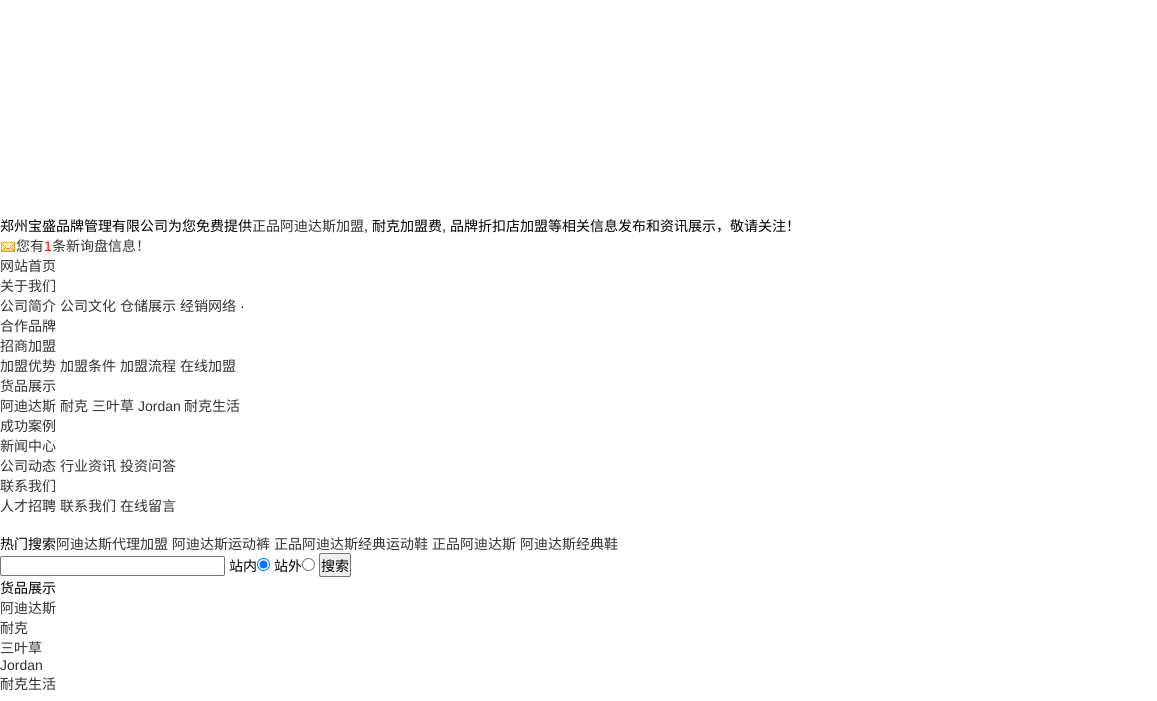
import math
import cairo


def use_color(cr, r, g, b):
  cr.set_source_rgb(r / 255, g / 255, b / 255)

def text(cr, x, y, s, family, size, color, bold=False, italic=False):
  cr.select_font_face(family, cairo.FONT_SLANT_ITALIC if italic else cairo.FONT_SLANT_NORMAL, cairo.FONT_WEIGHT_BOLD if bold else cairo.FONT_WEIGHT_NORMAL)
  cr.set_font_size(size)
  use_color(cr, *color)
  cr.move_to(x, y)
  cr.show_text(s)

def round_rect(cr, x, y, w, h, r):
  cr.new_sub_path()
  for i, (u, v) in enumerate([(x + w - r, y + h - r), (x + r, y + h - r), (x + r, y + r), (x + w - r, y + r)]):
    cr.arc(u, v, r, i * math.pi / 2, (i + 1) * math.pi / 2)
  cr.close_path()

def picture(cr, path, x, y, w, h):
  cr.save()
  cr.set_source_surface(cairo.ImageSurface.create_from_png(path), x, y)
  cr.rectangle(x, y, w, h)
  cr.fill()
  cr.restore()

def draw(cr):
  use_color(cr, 255, 255, 255)
  cr.paint()
  picture(cr, "img_01.png", 1, 242, 14, 10)
  round_rect(cr, 0.5, 556.5, 224, 19, 1.5)
  use_color(cr, 118, 118, 118)
  cr.set_line_width(1)
  cr.stroke()
  cr.arc(263.5, 564.5, 6, 0, 2 * math.pi)
  use_color(cr, 0, 117, 255)
  cr.stroke()
  cr.arc(263.5, 564.5, 4, 0, 2 * math.pi)
  cr.fill()
  cr.arc(308.5, 564.5, 6, 0, 2 * math.pi)
  use_color(cr, 118, 118, 118)
  cr.stroke()
  use_color(cr, 239, 239, 239)
  round_rect(cr, 319.5, 553.5, 31, 23, 1.5)
  cr.fill_preserve()
  use_color(cr, 118, 118, 118)
  cr.stroke()
  text(cr, 0, 231, "郑州宝盛品牌管理有限公司为您免费提供", "Noto Sans CJK SC", 14, (0, 0, 0))
  text(cr, 252, 231, "正品阿迪达斯加盟", "Noto Sans CJK SC", 14, (51, 51, 51))
  text(cr, 364, 231, ",", "Liberation Sans", 14, (0, 0, 0))
  text(cr, 372, 231, "耐克加盟费", "Noto Sans CJK SC", 14, (0, 0, 0))
  text(cr, 442, 231, ",", "Liberation Sans", 14, (0, 0, 0))
  text(cr, 450, 231, "品牌折扣店加盟等相关信息发布和资讯展示，敬请关注！", "Noto Sans CJK SC", 14, (0, 0, 0))
  text(cr, 16, 251, "您有", "Noto Sans CJK SC", 14, (51, 51, 51))
  text(cr, 44, 251, "1", "Liberation Sans", 14, (255, 0, 0))
  text(cr, 52, 251, "条新询盘信息！", "Noto Sans CJK SC", 14, (51, 51, 51))
  text(cr, 0, 271, "网站首页", "Noto Sans CJK SC", 14, (51, 51, 51))
  text(cr, 0, 291, "关于我们", "Noto Sans CJK SC", 14, (51, 51, 51))
  text(cr, 0, 311, "公司简介", "Noto Sans CJK SC", 14, (51, 51, 51))
  text(cr, 60, 311, "公司文化", "Noto Sans CJK SC", 14, (51, 51, 51))
  text(cr, 120, 311, "仓储展示", "Noto Sans CJK SC", 14, (51, 51, 51))
  text(cr, 180, 311, "经销网络", "Noto Sans CJK SC", 14, (51, 51, 51))
  text(cr, 240, 311, "·", "Liberation Sans", 14, (0, 0, 0))
  text(cr, 0, 331, "合作品牌", "Noto Sans CJK SC", 14, (51, 51, 51))
  text(cr, 0, 351, "招商加盟", "Noto Sans CJK SC", 14, (51, 51, 51))
  text(cr, 0, 371, "加盟优势", "Noto Sans CJK SC", 14, (51, 51, 51))
  text(cr, 60, 371, "加盟条件", "Noto Sans CJK SC", 14, (51, 51, 51))
  text(cr, 120, 371, "加盟流程", "Noto Sans CJK SC", 14, (51, 51, 51))
  text(cr, 180, 371, "在线加盟", "Noto Sans CJK SC", 14, (51, 51, 51))
  text(cr, 0, 391, "货品展示", "Noto Sans CJK SC", 14, (51, 51, 51))
  text(cr, 0, 411, "阿迪达斯", "Noto Sans CJK SC", 14, (51, 51, 51))
  text(cr, 60, 411, "耐克", "Noto Sans CJK SC", 14, (51, 51, 51))
  text(cr, 92, 411, "三叶草", "Noto Sans CJK SC", 14, (51, 51, 51))
  text(cr, 138, 411, "Jordan", "Liberation Sans", 14, (51, 51, 51))
  text(cr, 184, 411, "耐克生活", "Noto Sans CJK SC", 14, (51, 51, 51))
  text(cr, 0, 431, "成功案例", "Noto Sans CJK SC", 14, (51, 51, 51))
  text(cr, 0, 451, "新闻中心", "Noto Sans CJK SC", 14, (51, 51, 51))
  text(cr, 0, 471, "公司动态", "Noto Sans CJK SC", 14, (51, 51, 51))
  text(cr, 60, 471, "行业资讯", "Noto Sans CJK SC", 14, (51, 51, 51))
  text(cr, 120, 471, "投资问答", "Noto Sans CJK SC", 14, (51, 51, 51))
  text(cr, 0, 491, "联系我们", "Noto Sans CJK SC", 14, (51, 51, 51))
  text(cr, 0, 511, "人才招聘", "Noto Sans CJK SC", 14, (51, 51, 51))
  text(cr, 60, 511, "联系我们", "Noto Sans CJK SC", 14, (51, 51, 51))
  text(cr, 120, 511, "在线留言", "Noto Sans CJK SC", 14, (51, 51, 51))
  text(cr, 0, 549, "热门搜索", "Noto Sans CJK SC", 14, (0, 0, 0))
  text(cr, 56, 549, "阿迪达斯代理加盟", "Noto Sans CJK SC", 14, (51, 51, 51))
  text(cr, 172, 549, "阿迪达斯运动裤", "Noto Sans CJK SC", 14, (51, 51, 51))
  text(cr, 274, 549, "正品阿迪达斯经典运动鞋", "Noto Sans CJK SC", 14, (51, 51, 51))
  text(cr, 432, 549, "正品阿迪达斯", "Noto Sans CJK SC", 14, (51, 51, 51))
  text(cr, 520, 549, "阿迪达斯经典鞋", "Noto Sans CJK SC", 14, (51, 51, 51))
  text(cr, 229, 571, "站内", "Noto Sans CJK SC", 14, (0, 0, 0))
  text(cr, 274, 571, "站外", "Noto Sans CJK SC", 14, (0, 0, 0))
  text(cr, 321, 571, "搜索", "Noto Sans CJK SC", 14, (0, 0, 0))
  text(cr, 0, 593, "货品展示", "Noto Sans CJK SC", 14, (0, 0, 0))
  text(cr, 0, 613, "阿迪达斯", "Noto Sans CJK SC", 14, (51, 51, 51))
  text(cr, 0, 633, "耐克", "Noto Sans CJK SC", 14, (51, 51, 51))
  text(cr, 0, 653, "三叶草", "Noto Sans CJK SC", 14, (51, 51, 51))
  text(cr, 0, 670, "Jordan", "Liberation Sans", 14, (51, 51, 51))
  text(cr, 0, 689, "耐克生活", "Noto Sans CJK SC", 14, (51, 51, 51))


surface = cairo.ImageSurface(cairo.FORMAT_RGB24, 1157, 701)
cr = cairo.Context(surface)
options = cairo.FontOptions()
options.set_hint_metrics(cairo.HINT_METRICS_OFF)
options.set_hint_style(cairo.HINT_STYLE_NONE)
cr.set_font_options(options)
cr.set_miter_limit(4)
draw(cr)
surface.write_to_png("out.png")
